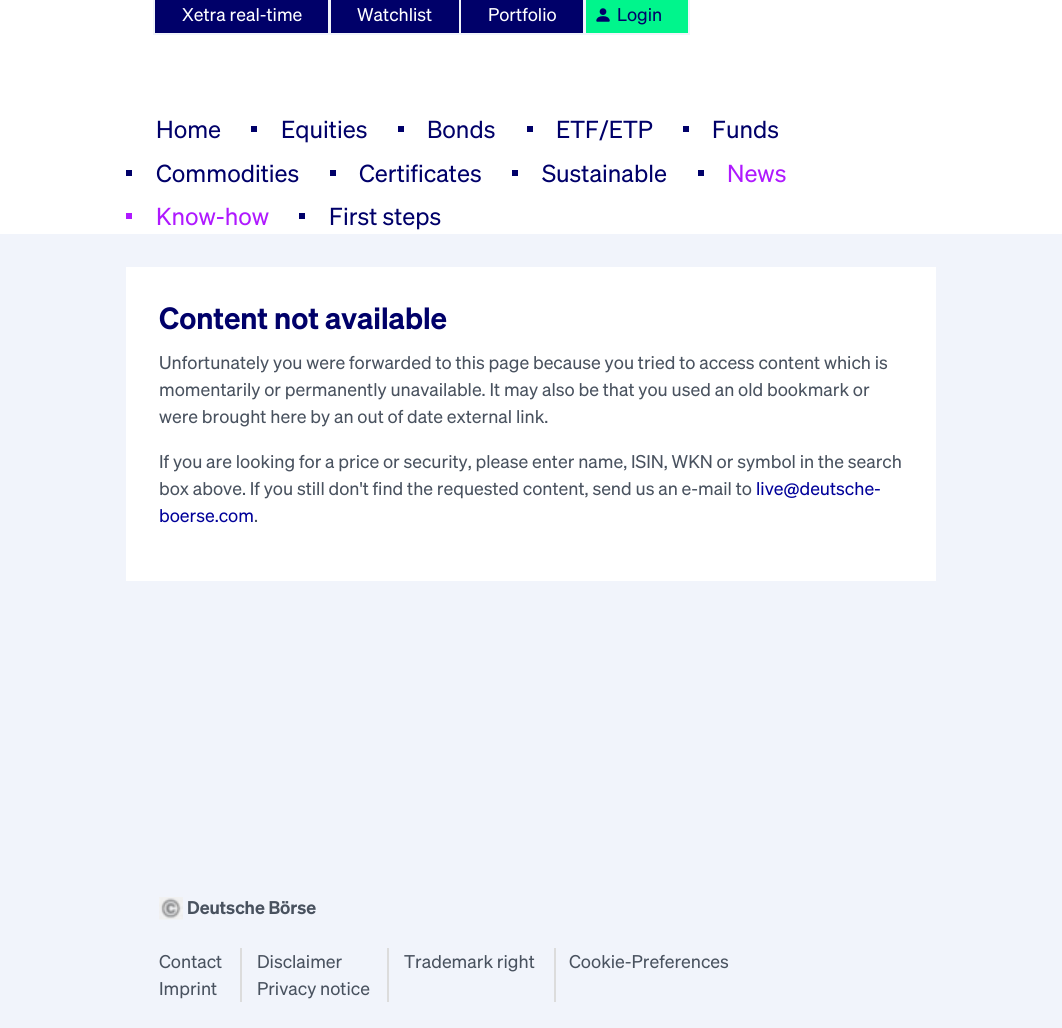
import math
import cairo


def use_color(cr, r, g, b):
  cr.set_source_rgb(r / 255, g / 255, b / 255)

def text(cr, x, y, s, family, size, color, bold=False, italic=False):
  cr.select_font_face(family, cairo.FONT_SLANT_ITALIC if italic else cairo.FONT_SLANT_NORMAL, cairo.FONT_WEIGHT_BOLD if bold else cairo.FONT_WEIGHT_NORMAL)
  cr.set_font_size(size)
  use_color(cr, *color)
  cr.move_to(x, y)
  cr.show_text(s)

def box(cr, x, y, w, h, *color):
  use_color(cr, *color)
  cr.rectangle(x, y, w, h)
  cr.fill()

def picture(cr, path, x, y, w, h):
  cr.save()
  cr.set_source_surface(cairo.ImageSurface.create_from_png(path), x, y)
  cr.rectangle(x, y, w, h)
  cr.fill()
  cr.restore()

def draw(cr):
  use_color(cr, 241, 244, 251)
  cr.paint()
  box(cr, 0, 0, 1062, 234, 255, 255, 255)
  use_color(cr, 0, 0, 105)
  cr.rectangle(154, -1, 175, 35)
  cr.fill_preserve()
  use_color(cr, 241, 244, 251)
  cr.stroke()
  use_color(cr, 0, 0, 105)
  cr.rectangle(330, -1, 130, 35)
  cr.fill_preserve()
  use_color(cr, 241, 244, 251)
  cr.stroke()
  use_color(cr, 0, 0, 105)
  cr.rectangle(460, -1, 124, 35)
  cr.fill_preserve()
  use_color(cr, 241, 244, 251)
  cr.stroke()
  use_color(cr, 0, 245, 140)
  cr.rectangle(585, -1, 104, 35)
  cr.fill_preserve()
  use_color(cr, 241, 244, 251)
  cr.stroke()
  picture(cr, "img_01.png", 596, 8, 14, 14)
  box(cr, 251, 126, 6, 6, 0, 0, 105)
  box(cr, 398, 126, 6, 6, 0, 0, 105)
  box(cr, 527, 126, 6, 6, 0, 0, 105)
  box(cr, 683, 126, 6, 6, 0, 0, 105)
  box(cr, 126, 170, 6, 6, 0, 0, 105)
  box(cr, 330, 170, 6, 6, 0, 0, 105)
  box(cr, 512, 170, 6, 6, 0, 0, 105)
  box(cr, 698, 170, 6, 6, 0, 0, 105)
  box(cr, 126, 213, 6, 6, 175, 25, 255)
  box(cr, 299, 213, 6, 6, 0, 0, 105)
  box(cr, 126, 267, 810, 314, 255, 255, 255)
  picture(cr, "img_02.png", 159, 897, 24, 23)
  box(cr, 240, 948, 2, 54, 220, 220, 220)
  box(cr, 387, 948, 2, 54, 220, 220, 220)
  box(cr, 554, 948, 2, 54, 220, 220, 220)
  text(cr, 182, 21, "Xetra real-time", "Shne", 18, (255, 255, 255))
  text(cr, 357, 21, "Watchlist", "Shne", 18, (255, 255, 255))
  text(cr, 488, 21, "Portfolio", "Shne", 18, (255, 255, 255))
  text(cr, 617, 21, "Login", "Shne", 18, (0, 0, 105))
  text(cr, 156, 138, "Home", "Shne", 24, (0, 0, 105))
  text(cr, 281, 138, "Equities", "Shne", 24, (0, 0, 105))
  text(cr, 427, 138, "Bonds", "Shne", 24, (0, 0, 105))
  text(cr, 556, 138, "ETF/ETP", "Shne", 24, (0, 0, 105))
  text(cr, 712, 138, "Funds", "Shne", 24, (0, 0, 105))
  text(cr, 156, 182, "Commodities", "Shne", 24, (0, 0, 105))
  text(cr, 359, 182, "Certificates", "Shne", 24, (0, 0, 105))
  text(cr, 542, 182, "Sustainable", "Shne", 24, (0, 0, 105))
  text(cr, 727, 182, "News", "Shne", 24, (175, 25, 255))
  text(cr, 156, 225, "Know-how", "Shne", 24, (175, 25, 255))
  text(cr, 329, 225, "First steps", "Shne", 24, (0, 0, 105))
  text(cr, 159, 329, "Content not available", "Shne SemiBold", 30, (0, 0, 105))
  text(cr, 159, 369, "Unfortunately you were forwarded to this page because you tried to access content which is", "Shne", 18, (73, 82, 95))
  text(cr, 159, 396, "momentarily or permanently unavailable. It may also be that you used an old bookmark or", "Shne", 18, (73, 82, 95))
  text(cr, 159, 423, "were brought here by an out of date external link.", "Shne", 18, (73, 82, 95))
  text(cr, 159, 468, "If you are looking for a price or security, please enter name, ISIN, WKN or symbol in the search", "Shne", 18, (73, 82, 95))
  text(cr, 159, 495, "box above. If you still don't find the requested content, send us an e-mail to", "Shne", 18, (73, 82, 95))
  text(cr, 756, 495, "live@deutsche-", "Shne", 18, (0, 0, 153))
  text(cr, 159, 522, "boerse.com", "Shne", 18, (0, 0, 153))
  text(cr, 254, 522, ".", "Shne", 18, (73, 82, 95))
  text(cr, 187, 914, "Deutsche Börse", "Shne SemiBold", 18, (73, 82, 95))
  text(cr, 159, 968, "Contact", "Shne", 18, (73, 82, 95))
  text(cr, 159, 995, "Imprint", "Shne", 18, (73, 82, 95))
  text(cr, 257, 968, "Disclaimer", "Shne", 18, (73, 82, 95))
  text(cr, 257, 995, "Privacy notice", "Shne", 18, (73, 82, 95))
  text(cr, 404, 968, "Trademark right", "Shne", 18, (73, 82, 95))
  text(cr, 569, 968, "Cookie-Preferences", "Shne", 18, (73, 82, 95))


surface = cairo.ImageSurface(cairo.FORMAT_RGB24, 1062, 1028)
cr = cairo.Context(surface)
options = cairo.FontOptions()
options.set_hint_metrics(cairo.HINT_METRICS_OFF)
options.set_hint_style(cairo.HINT_STYLE_NONE)
cr.set_font_options(options)
cr.set_miter_limit(4)
draw(cr)
surface.write_to_png("out.png")
